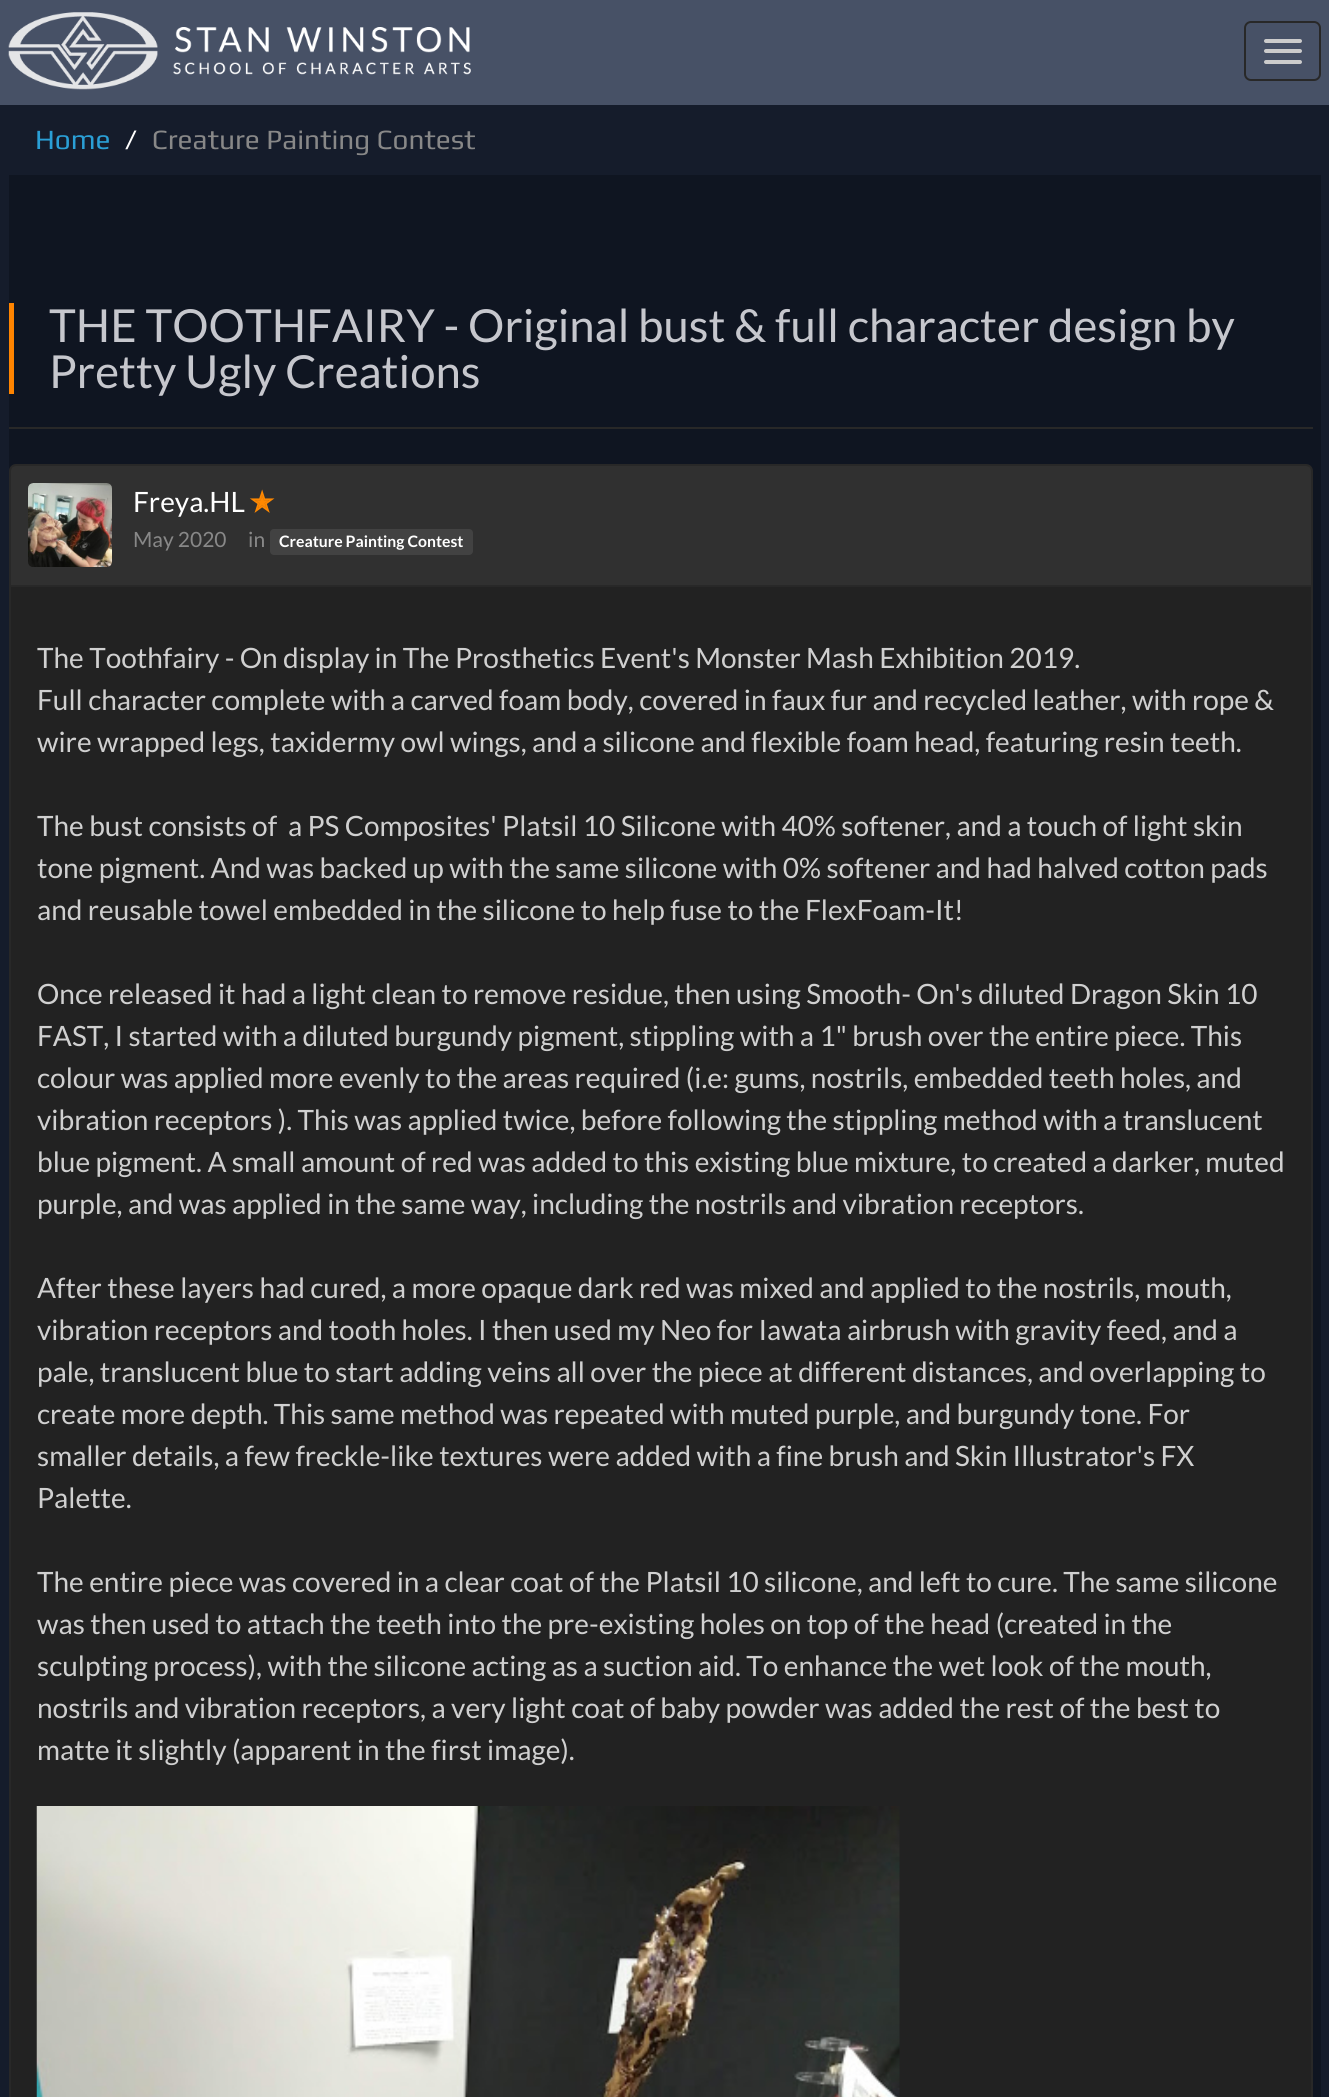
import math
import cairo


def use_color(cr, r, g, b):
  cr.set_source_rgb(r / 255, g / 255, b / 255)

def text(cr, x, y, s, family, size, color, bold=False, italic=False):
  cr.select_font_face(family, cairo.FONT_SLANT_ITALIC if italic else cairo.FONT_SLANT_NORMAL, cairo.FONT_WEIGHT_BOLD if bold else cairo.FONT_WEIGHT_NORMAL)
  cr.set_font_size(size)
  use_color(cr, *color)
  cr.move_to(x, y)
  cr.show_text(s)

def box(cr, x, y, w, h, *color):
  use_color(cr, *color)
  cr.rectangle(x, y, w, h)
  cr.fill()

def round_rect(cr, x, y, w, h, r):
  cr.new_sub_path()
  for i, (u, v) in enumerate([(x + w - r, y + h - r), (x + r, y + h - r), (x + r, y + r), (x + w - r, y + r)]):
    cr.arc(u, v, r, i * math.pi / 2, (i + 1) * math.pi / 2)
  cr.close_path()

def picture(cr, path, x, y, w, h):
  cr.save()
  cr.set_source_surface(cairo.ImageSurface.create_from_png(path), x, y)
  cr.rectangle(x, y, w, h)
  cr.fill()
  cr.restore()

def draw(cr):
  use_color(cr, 21, 28, 43)
  cr.paint()
  box(cr, 0, 0, 1329, 105, 71, 81, 102)
  picture(cr, "img_01.png", 8, 12, 463, 78)
  round_rect(cr, 1245, 22, 75, 58, 6)
  use_color(cr, 40, 40, 40)
  cr.stroke()
  use_color(cr, 204, 204, 204)
  round_rect(cr, 1264, 39, 38, 4, 2)
  cr.fill()
  round_rect(cr, 1264, 49, 38, 4, 2)
  cr.fill()
  round_rect(cr, 1264, 60, 38, 4, 2)
  cr.fill()
  box(cr, 9, 175, 1312, 1922, 15, 21, 33)
  box(cr, 9, 427, 1304, 2, 40, 40, 40)
  box(cr, 9, 303, 5, 91, 255, 132, 0)
  use_color(cr, 34, 34, 34)
  round_rect(cr, 10, 465, 1302, 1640, 6)
  cr.fill_preserve()
  use_color(cr, 40, 40, 40)
  cr.stroke()
  use_color(cr, 48, 48, 48)
  cr.new_path()
  cr.move_to(16, 466)
  cr.line_to(1306, 466)
  cr.curve_to(1309, 466, 1311, 468, 1311, 471)
  cr.line_to(1311, 586)
  cr.line_to(11, 586)
  cr.line_to(11, 471)
  cr.curve_to(11, 468, 13, 466, 16, 466)
  cr.close_path()
  cr.fill()
  box(cr, 11, 585, 1300, 2, 40, 40, 40)
  picture(cr, "img_02.png", 28, 483, 84, 84)
  use_color(cr, 66, 66, 66)
  round_rect(cr, 270, 529, 203, 26, 4)
  cr.fill()
  picture(cr, "img_03.png", 36, 1806, 864, 291)
  text(cr, 35, 149, "Home", "Play", 28, (42, 159, 214))
  text(cr, 125, 149, "/", "Play", 28, (255, 255, 255))
  text(cr, 152, 149, "Creature Painting Contest", "Play", 28, (136, 136, 136))
  text(cr, 49, 342, "THE TOOTHFAIRY - Original bust & full character design by", "Lato", 45.5, (198, 199, 205))
  text(cr, 49, 388, "Pretty Ugly Creations", "Lato", 45.5, (198, 199, 205))
  text(cr, 133, 512, "Freya.HL", "Lato", 28, (255, 255, 255))
  text(cr, 250, 512, "✭", "DejaVu Sans", 28, (255, 136, 0), bold=True)
  text(cr, 133, 547, "May 2020", "Lato", 21, (136, 136, 136))
  text(cr, 248, 547, "in", "Lato", 21, (136, 136, 136))
  text(cr, 279, 547, "Creature Painting Contest", "Lato", 15.75, (255, 255, 255), bold=True)
  text(cr, 37, 668, "The Toothfairy - On display in The Prosthetics Event's Monster Mash Exhibition 2019.", "Lato", 28, (208, 208, 208))
  text(cr, 37, 710, "Full character complete with a carved foam body, covered in faux fur and recycled leather, with rope &", "Lato", 28, (208, 208, 208))
  text(cr, 37, 752, "wire wrapped legs, taxidermy owl wings, and a silicone and flexible foam head, featuring resin teeth.", "Lato", 28, (208, 208, 208))
  text(cr, 37, 836, "The bust consists of  a PS Composites' Platsil 10 Silicone with 40% softener, and a touch of light skin", "Lato", 28, (208, 208, 208))
  text(cr, 37, 878, "tone pigment. And was backed up with the same silicone with 0% softener and had halved cotton pads", "Lato", 28, (208, 208, 208))
  text(cr, 37, 920, "and reusable towel embedded in the silicone to help fuse to the FlexFoam-It!", "Lato", 28, (208, 208, 208))
  text(cr, 37, 1004, "Once released it had a light clean to remove residue, then using Smooth- On's diluted Dragon Skin 10", "Lato", 28, (208, 208, 208))
  text(cr, 37, 1046, "FAST, I started with a diluted burgundy pigment, stippling with a 1\" brush over the entire piece. This", "Lato", 28, (208, 208, 208))
  text(cr, 37, 1088, "colour was applied more evenly to the areas required (i.e: gums, nostrils, embedded teeth holes, and", "Lato", 28, (208, 208, 208))
  text(cr, 37, 1130, "vibration receptors ). This was applied twice, before following the stippling method with a translucent", "Lato", 28, (208, 208, 208))
  text(cr, 37, 1172, "blue pigment. A small amount of red was added to this existing blue mixture, to created a darker, muted", "Lato", 28, (208, 208, 208))
  text(cr, 37, 1214, "purple, and was applied in the same way, including the nostrils and vibration receptors.", "Lato", 28, (208, 208, 208))
  text(cr, 37, 1298, "After these layers had cured, a more opaque dark red was mixed and applied to the nostrils, mouth,", "Lato", 28, (208, 208, 208))
  text(cr, 37, 1340, "vibration receptors and tooth holes. I then used my Neo for Iawata airbrush with gravity feed, and a", "Lato", 28, (208, 208, 208))
  text(cr, 37, 1382, "pale, translucent blue to start adding veins all over the piece at different distances, and overlapping to", "Lato", 28, (208, 208, 208))
  text(cr, 37, 1424, "create more depth. This same method was repeated with muted purple, and burgundy tone. For", "Lato", 28, (208, 208, 208))
  text(cr, 37, 1466, "smaller details, a few freckle-like textures were added with a fine brush and Skin Illustrator's FX", "Lato", 28, (208, 208, 208))
  text(cr, 37, 1508, "Palette.", "Lato", 28, (208, 208, 208))
  text(cr, 37, 1592, "The entire piece was covered in a clear coat of the Platsil 10 silicone, and left to cure. The same silicone", "Lato", 28, (208, 208, 208))
  text(cr, 37, 1634, "was then used to attach the teeth into the pre-existing holes on top of the head (created in the", "Lato", 28, (208, 208, 208))
  text(cr, 37, 1676, "sculpting process), with the silicone acting as a suction aid. To enhance the wet look of the mouth,", "Lato", 28, (208, 208, 208))
  text(cr, 37, 1718, "nostrils and vibration receptors, a very light coat of baby powder was added the rest of the best to", "Lato", 28, (208, 208, 208))
  text(cr, 37, 1760, "matte it slightly (apparent in the first image).", "Lato", 28, (208, 208, 208))


surface = cairo.ImageSurface(cairo.FORMAT_RGB24, 1329, 2097)
cr = cairo.Context(surface)
options = cairo.FontOptions()
options.set_hint_metrics(cairo.HINT_METRICS_OFF)
options.set_hint_style(cairo.HINT_STYLE_NONE)
cr.set_font_options(options)
cr.set_miter_limit(4)
draw(cr)
surface.write_to_png("out.png")
